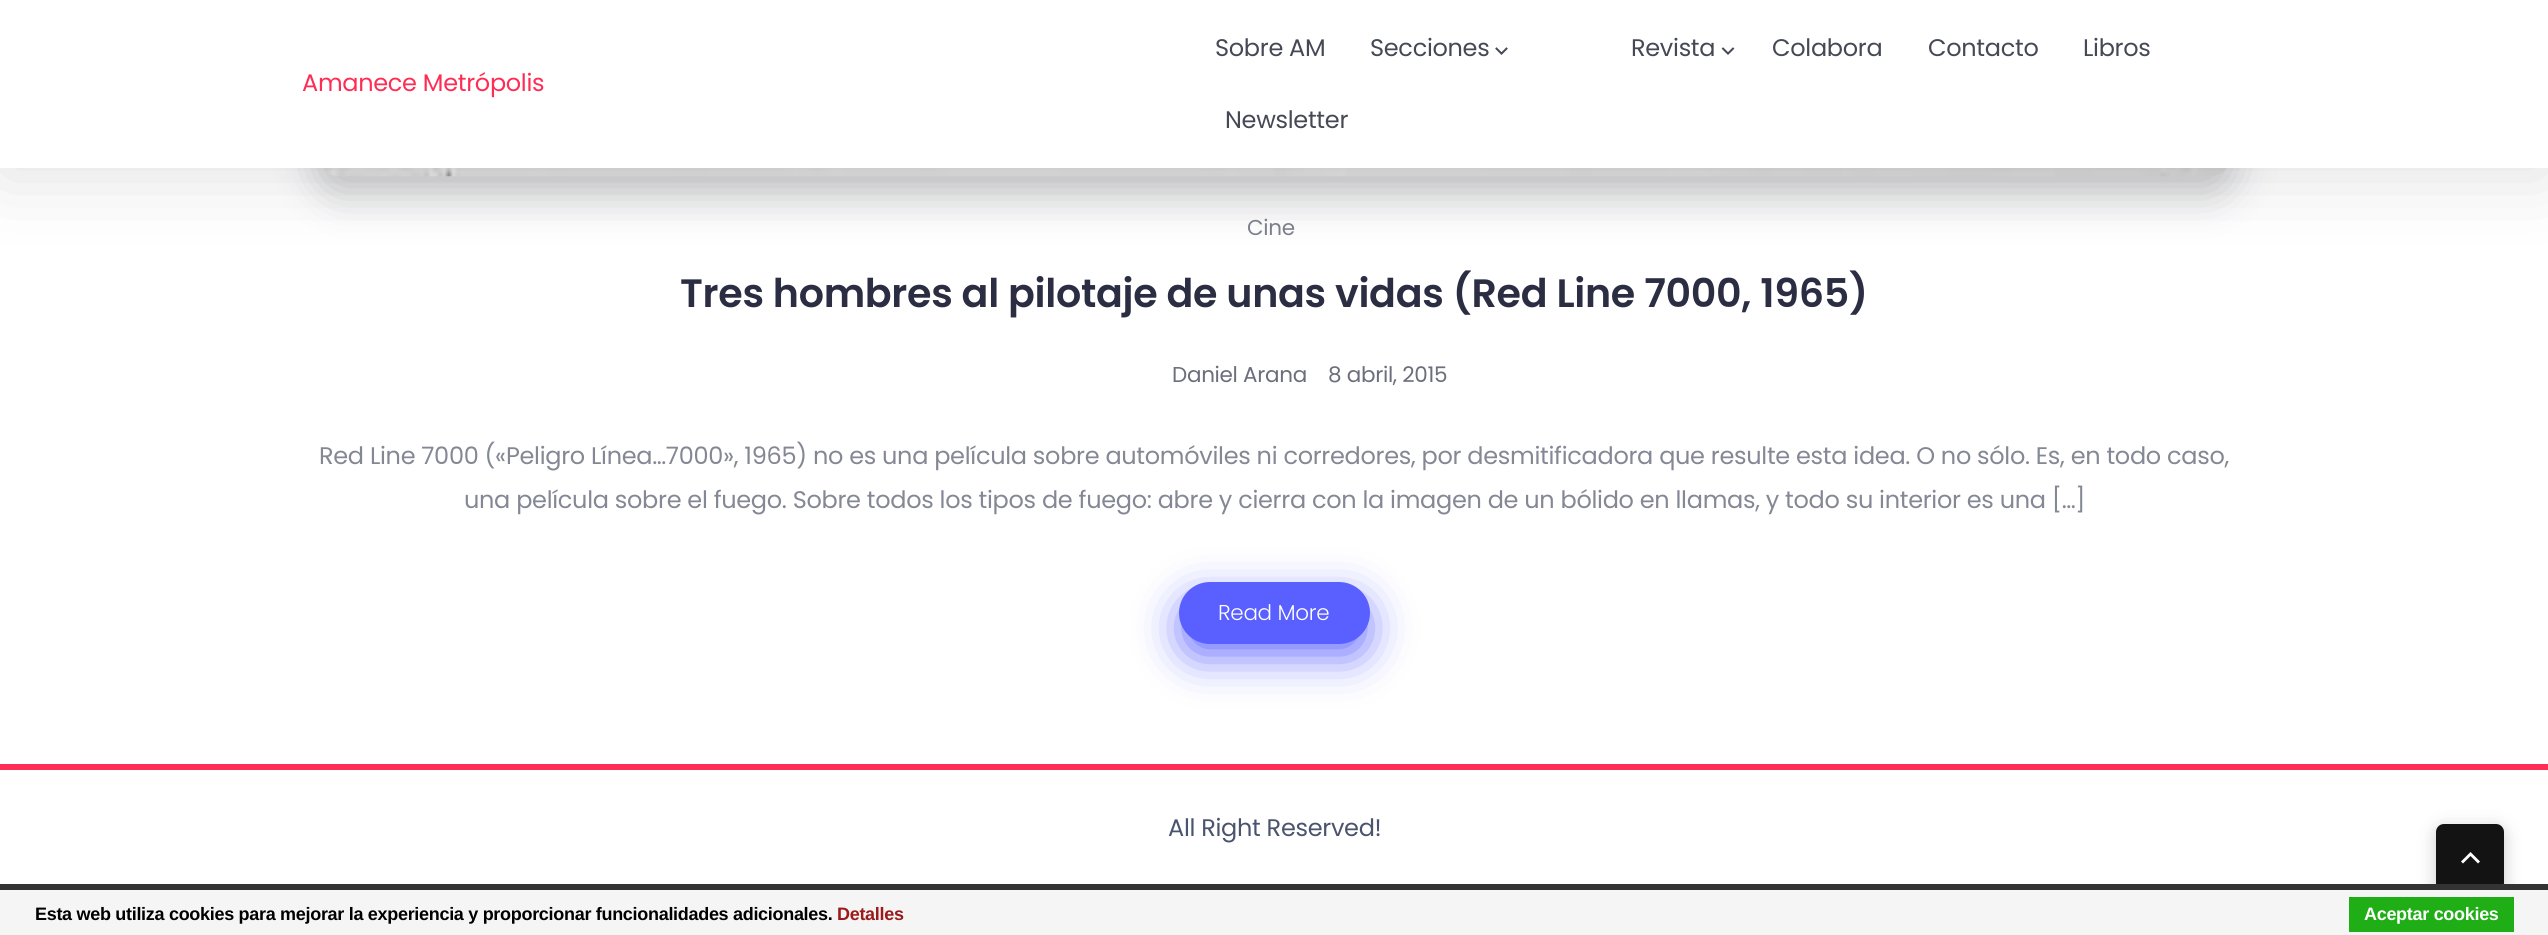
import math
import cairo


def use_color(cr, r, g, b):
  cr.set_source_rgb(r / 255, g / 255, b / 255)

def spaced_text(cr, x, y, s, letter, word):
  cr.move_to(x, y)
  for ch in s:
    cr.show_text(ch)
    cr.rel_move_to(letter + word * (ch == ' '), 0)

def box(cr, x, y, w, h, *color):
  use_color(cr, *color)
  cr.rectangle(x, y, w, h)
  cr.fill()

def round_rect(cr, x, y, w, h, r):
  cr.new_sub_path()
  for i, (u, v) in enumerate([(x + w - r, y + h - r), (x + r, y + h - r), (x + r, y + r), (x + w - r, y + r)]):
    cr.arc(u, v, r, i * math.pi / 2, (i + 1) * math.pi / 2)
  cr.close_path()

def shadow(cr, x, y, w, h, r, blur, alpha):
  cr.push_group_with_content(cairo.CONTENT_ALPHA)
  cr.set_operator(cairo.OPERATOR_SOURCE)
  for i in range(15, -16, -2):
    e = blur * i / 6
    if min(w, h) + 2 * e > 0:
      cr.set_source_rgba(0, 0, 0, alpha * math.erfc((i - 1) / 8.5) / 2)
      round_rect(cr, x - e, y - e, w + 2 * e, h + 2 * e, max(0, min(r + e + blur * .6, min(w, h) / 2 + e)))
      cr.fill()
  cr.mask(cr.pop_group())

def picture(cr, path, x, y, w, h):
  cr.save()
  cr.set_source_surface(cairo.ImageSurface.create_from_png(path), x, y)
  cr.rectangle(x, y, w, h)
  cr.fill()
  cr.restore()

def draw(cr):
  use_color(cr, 255, 255, 255)
  cr.paint()
  use_color(cr, 23, 25, 32)
  shadow(cr, 312, -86, 1926, 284, 29, 19, 0.21)
  picture(cr, "img_03.png", 323, 168, 1904, 9)
  use_color(cr, 55, 56, 64)
  shadow(cr, 0, 9, 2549, 168, 0, 37.5, 0.15)
  box(cr, 0, 0, 2548, 168, 255, 255, 255)
  picture(cr, "img_01.png", 1495, 47, 13, 8)
  picture(cr, "img_02.png", 1721, 47, 14, 8)
  use_color(cr, 89, 96, 255)
  shadow(cr, 1185, 603, 179, 50, 25, 22.5, 1)
  use_color(cr, 89, 96, 255)
  round_rect(cr, 1179, 582, 191, 62, 31)
  cr.fill()
  box(cr, 0, 764, 2548, 6, 255, 44, 84)
  use_color(cr, 40, 41, 47)
  shadow(cr, 2436, 828, 68, 68, 8, 9, 0.24)
  use_color(cr, 19, 19, 20)
  round_rect(cr, 2436, 824, 68, 67, 8)
  cr.fill()
  use_color(cr, 255, 255, 255)
  cr.new_path()
  cr.move_to(2470.5, 856)
  cr.line_to(2463, 863.5)
  cr.line_to(2461, 861.5)
  cr.line_to(2470.5, 852)
  cr.line_to(2480, 861.5)
  cr.line_to(2478, 863.5)
  cr.close_path()
  cr.fill()
  box(cr, 0, 890, 2548, 45, 245, 245, 245)
  box(cr, 0, 884, 2548, 6, 51, 51, 51)
  box(cr, 2349, 897, 165, 35, 31, 174, 22)
  cr.select_font_face("Poppins")
  cr.set_font_size(24)
  use_color(cr, 255, 44, 84)
  spaced_text(cr, 302, 91, "Amanece Metrópolis", -0.3, 0)
  use_color(cr, 69, 73, 85)
  spaced_text(cr, 1215, 56, "Sobre AM", -0.3, 0)
  spaced_text(cr, 1370, 56, "Secciones", -0.3, 0)
  spaced_text(cr, 1631, 56, "Revista", -0.3, 0)
  spaced_text(cr, 1772, 56, "Colabora", -0.3, 0)
  spaced_text(cr, 1928, 56, "Contacto", -0.3, 0)
  spaced_text(cr, 2083, 56, "Libros", -0.3, 0)
  spaced_text(cr, 1225, 128, "Newsletter", -0.3, 0)
  cr.set_font_size(21.5)
  use_color(cr, 124, 128, 139)
  spaced_text(cr, 1247, 235, "Cine", -0.3, 0)
  cr.select_font_face("Poppins SemiBold")
  cr.set_font_size(39.6)
  use_color(cr, 43, 45, 66)
  spaced_text(cr, 680, 307, "Tres hombres al pilotaje de unas vidas (Red Line 7000, 1965)", -0.3, 0)
  cr.select_font_face("Poppins")
  cr.set_font_size(21.5)
  use_color(cr, 107, 110, 124)
  spaced_text(cr, 1172, 382, "Daniel Arana", -0.3, 0)
  spaced_text(cr, 1328, 382, "8 abril, 2015", -0.3, 0)
  cr.set_font_size(24)
  use_color(cr, 132, 135, 148)
  spaced_text(cr, 319, 464, "Red Line 7000 («Peligro Línea…7000», 1965) no es una película sobre automóviles ni corredores, por desmitificadora que resulte esta idea. O no sólo. Es, en todo caso,", -0.3, 0)
  spaced_text(cr, 464, 508, "una película sobre el fuego. Sobre todos los tipos de fuego: abre y cierra con la imagen de un bólido en llamas, y todo su interior es una […]", -0.3, 0)
  cr.select_font_face("Poppins Light")
  cr.set_font_size(21.5)
  use_color(cr, 255, 255, 255)
  spaced_text(cr, 1218, 620, "Read More", -0.3, 0)
  cr.select_font_face("Poppins")
  cr.set_font_size(24)
  use_color(cr, 75, 84, 110)
  spaced_text(cr, 1168, 836, "All Right Reserved!", -0.3, 0)
  cr.select_font_face("Liberation Sans", cairo.FONT_SLANT_NORMAL, cairo.FONT_WEIGHT_BOLD)
  cr.set_font_size(18)
  use_color(cr, 0, 0, 0)
  spaced_text(cr, 35, 920, "Esta web utiliza cookies para mejorar la experiencia y proporcionar funcionalidades adicionales.", -0.3, 0)
  use_color(cr, 155, 26, 26)
  spaced_text(cr, 837, 920, "Detalles", -0.3, 0)
  use_color(cr, 255, 255, 255)
  spaced_text(cr, 2364, 920, "Aceptar cookies", -0.3, 0)


surface = cairo.ImageSurface(cairo.FORMAT_RGB24, 2548, 935)
cr = cairo.Context(surface)
options = cairo.FontOptions()
options.set_hint_metrics(cairo.HINT_METRICS_OFF)
options.set_hint_style(cairo.HINT_STYLE_NONE)
cr.set_font_options(options)
cr.set_miter_limit(4)
draw(cr)
surface.write_to_png("out.png")
